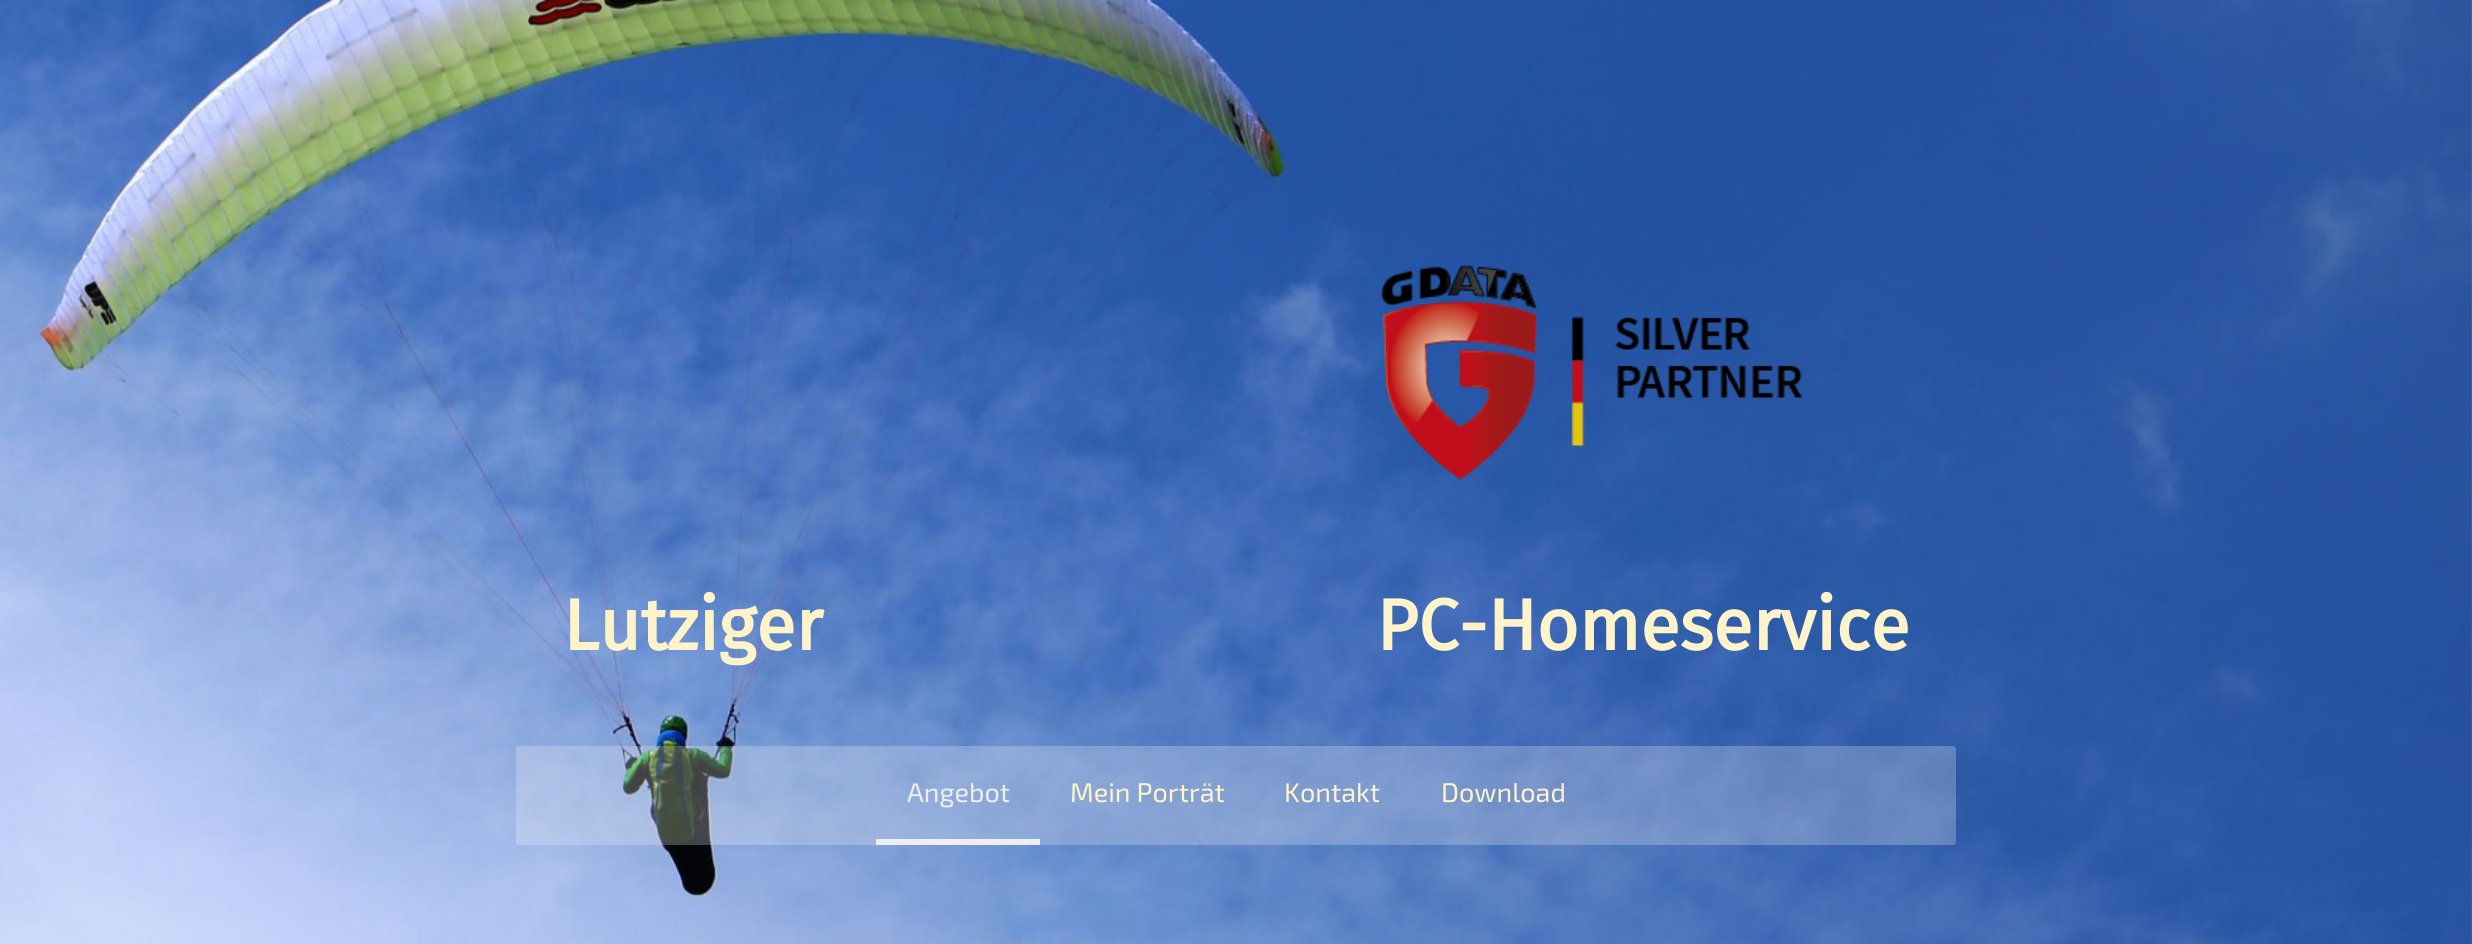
import math
import cairo


def use_color(cr, r, g, b):
  cr.set_source_rgb(r / 255, g / 255, b / 255)

def text(cr, x, y, s, family, size, color, bold=False, italic=False):
  cr.select_font_face(family, cairo.FONT_SLANT_ITALIC if italic else cairo.FONT_SLANT_NORMAL, cairo.FONT_WEIGHT_BOLD if bold else cairo.FONT_WEIGHT_NORMAL)
  cr.set_font_size(size)
  use_color(cr, *color)
  cr.move_to(x, y)
  cr.show_text(s)

def box(cr, x, y, w, h, *color):
  use_color(cr, *color)
  cr.rectangle(x, y, w, h)
  cr.fill()

def round_rect(cr, x, y, w, h, r):
  cr.new_sub_path()
  for i, (u, v) in enumerate([(x + w - r, y + h - r), (x + r, y + h - r), (x + r, y + r), (x + w - r, y + r)]):
    cr.arc(u, v, r, i * math.pi / 2, (i + 1) * math.pi / 2)
  cr.close_path()

def picture(cr, path, x, y, w, h):
  cr.save()
  cr.set_source_surface(cairo.ImageSurface.create_from_png(path), x, y)
  cr.rectangle(x, y, w, h)
  cr.fill()
  cr.restore()

def draw(cr):
  use_color(cr, 255, 255, 255)
  cr.paint()
  picture(cr, "img_01.png", 0, 0, 2472, 944)
  picture(cr, "img_02.png", 1381, 265, 422, 216)
  cr.set_source_rgba(0.953, 0.953, 0.953, 0.26)
  round_rect(cr, 516, 746, 1440, 99, 3)
  cr.fill()
  box(cr, 876, 839, 164, 6, 238, 238, 238)
  text(cr, 563, 650, "Lutziger                             PC-Homeservice", "Fira Sans", 72, (255, 243, 202), bold=True)
  text(cr, 907, 802, "Angebot", "Exo 2", 27, (238, 238, 238))
  text(cr, 1070, 802, "Mein Porträt", "Exo 2", 27, (255, 243, 202))
  text(cr, 1284, 802, "Kontakt", "Exo 2", 27, (255, 243, 202))
  text(cr, 1441, 802, "Download", "Exo 2", 27, (255, 243, 202))


surface = cairo.ImageSurface(cairo.FORMAT_RGB24, 2472, 944)
cr = cairo.Context(surface)
options = cairo.FontOptions()
options.set_hint_metrics(cairo.HINT_METRICS_OFF)
options.set_hint_style(cairo.HINT_STYLE_NONE)
cr.set_font_options(options)
cr.set_miter_limit(4)
draw(cr)
surface.write_to_png("out.png")
